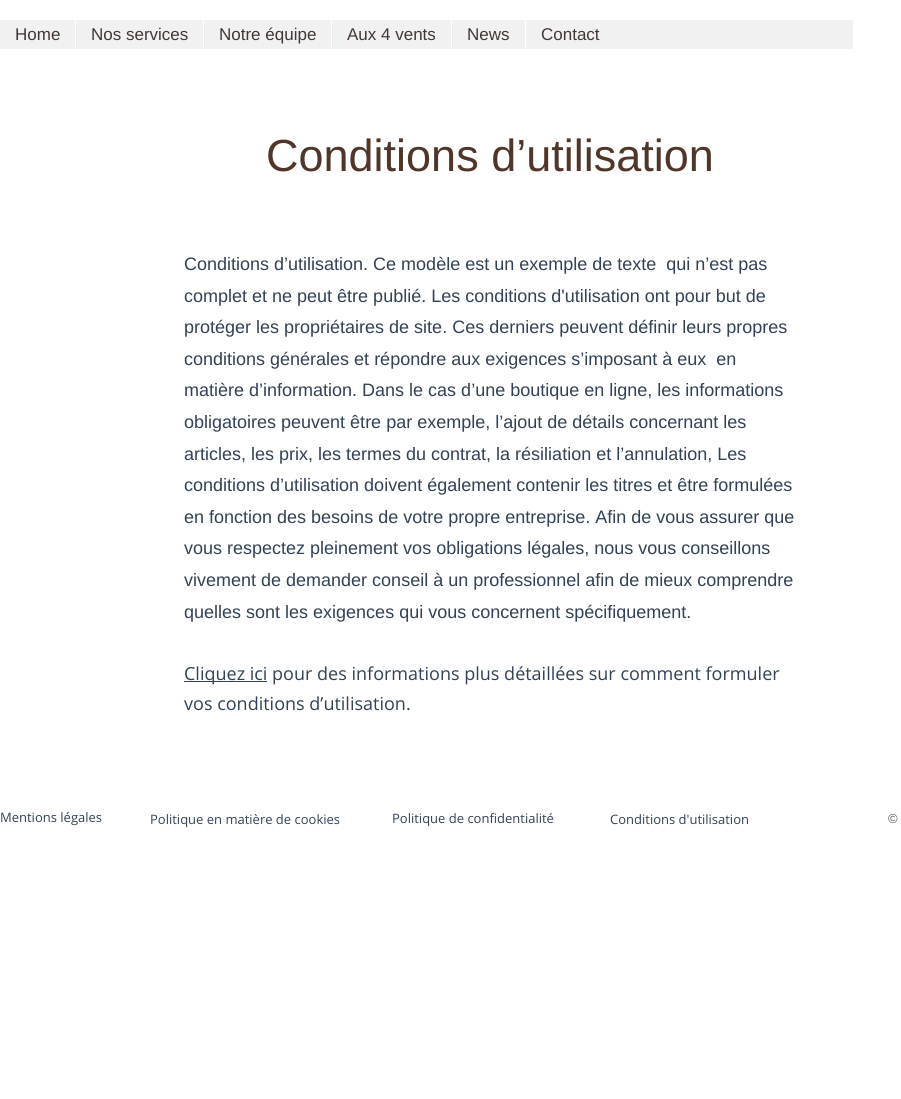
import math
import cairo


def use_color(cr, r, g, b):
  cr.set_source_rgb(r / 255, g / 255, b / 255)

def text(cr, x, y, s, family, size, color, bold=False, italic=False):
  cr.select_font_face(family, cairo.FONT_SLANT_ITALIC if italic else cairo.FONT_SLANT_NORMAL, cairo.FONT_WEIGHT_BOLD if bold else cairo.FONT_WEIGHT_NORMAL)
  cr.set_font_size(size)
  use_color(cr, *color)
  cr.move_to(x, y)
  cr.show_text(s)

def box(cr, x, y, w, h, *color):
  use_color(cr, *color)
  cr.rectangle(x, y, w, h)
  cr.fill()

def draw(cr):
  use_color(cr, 255, 255, 255)
  cr.paint()
  box(cr, 0, 20, 853, 29, 241, 241, 241)
  box(cr, 75, 20, 1, 29, 255, 255, 255)
  box(cr, 203, 20, 1, 29, 255, 255, 255)
  box(cr, 331, 20, 1, 29, 255, 255, 255)
  box(cr, 451, 20, 1, 29, 255, 255, 255)
  box(cr, 525, 20, 1, 29, 255, 255, 255)
  box(cr, 184, 681, 83, 1, 50, 65, 87)
  text(cr, 15, 40, "Home", "Arimo", 17, (66, 55, 55))
  text(cr, 91, 40, "Nos services", "Arimo", 17, (66, 55, 55))
  text(cr, 219, 40, "Notre équipe", "Arimo", 17, (66, 55, 55))
  text(cr, 347, 40, "Aux 4 vents", "Arimo", 17, (66, 55, 55))
  text(cr, 467, 40, "News", "Arimo", 17, (66, 55, 55))
  text(cr, 541, 40, "Contact", "Arimo", 17, (66, 55, 55))
  text(cr, 266, 171, "Conditions d’utilisation", "Arimo", 45, (80, 53, 41))
  text(cr, 184, 270, "Conditions d’utilisation. Ce modèle est un exemple de texte  qui n’est pas", "Arimo", 18, (50, 65, 87))
  text(cr, 184, 302, "complet et ne peut être publié. Les conditions d'utilisation ont pour but de", "Arimo", 18, (50, 65, 87))
  text(cr, 184, 333, "protéger les propriétaires de site. Ces derniers peuvent définir leurs propres", "Arimo", 18, (50, 65, 87))
  text(cr, 184, 365, "conditions générales et répondre aux exigences s’imposant à eux  en", "Arimo", 18, (50, 65, 87))
  text(cr, 184, 396, "matière d’information. Dans le cas d’une boutique en ligne, les informations", "Arimo", 18, (50, 65, 87))
  text(cr, 184, 428, "obligatoires peuvent être par exemple, l’ajout de détails concernant les", "Arimo", 18, (50, 65, 87))
  text(cr, 184, 460, "articles, les prix, les termes du contrat, la résiliation et l’annulation, Les", "Arimo", 18, (50, 65, 87))
  text(cr, 184, 491, "conditions d’utilisation doivent également contenir les titres et être formulées", "Arimo", 18, (50, 65, 87))
  text(cr, 184, 523, "en fonction des besoins de votre propre entreprise. Afin de vous assurer que", "Arimo", 18, (50, 65, 87))
  text(cr, 184, 554, "vous respectez pleinement vos obligations légales, nous vous conseillons", "Arimo", 18, (50, 65, 87))
  text(cr, 184, 586, "vivement de demander conseil à un professionnel afin de mieux comprendre", "Arimo", 18, (50, 65, 87))
  text(cr, 184, 618, "quelles sont les exigences qui vous concernent spécifiquement.", "Arimo", 18, (50, 65, 87))
  text(cr, 184, 680, "Cliquez ici pour des informations plus détaillées sur comment formuler", "Open Sans", 18, (50, 65, 87))
  text(cr, 184, 710, "vos conditions d’utilisation.", "Open Sans", 18, (50, 65, 87))
  text(cr, 0, 822, "Mentions légales", "Open Sans", 13, (50, 65, 87))
  text(cr, 150, 824, "Politique en matière de cookies", "Open Sans", 13, (50, 65, 87))
  text(cr, 392, 823, "Politique de confidentialité", "Open Sans", 13, (50, 65, 87))
  text(cr, 610, 824, "Conditions d'utilisation", "Open Sans", 13, (50, 65, 87))
  text(cr, 888, 823, "©", "Arimo", 13, (92, 92, 92))


surface = cairo.ImageSurface(cairo.FORMAT_RGB24, 901, 1099)
cr = cairo.Context(surface)
options = cairo.FontOptions()
options.set_hint_metrics(cairo.HINT_METRICS_OFF)
options.set_hint_style(cairo.HINT_STYLE_NONE)
cr.set_font_options(options)
cr.set_miter_limit(4)
draw(cr)
surface.write_to_png("out.png")
